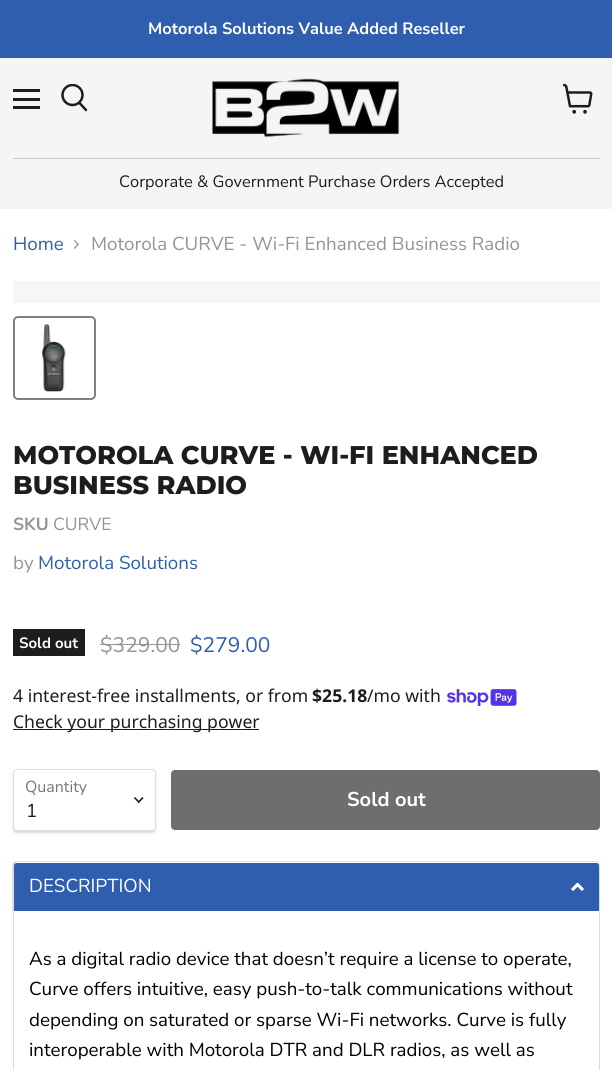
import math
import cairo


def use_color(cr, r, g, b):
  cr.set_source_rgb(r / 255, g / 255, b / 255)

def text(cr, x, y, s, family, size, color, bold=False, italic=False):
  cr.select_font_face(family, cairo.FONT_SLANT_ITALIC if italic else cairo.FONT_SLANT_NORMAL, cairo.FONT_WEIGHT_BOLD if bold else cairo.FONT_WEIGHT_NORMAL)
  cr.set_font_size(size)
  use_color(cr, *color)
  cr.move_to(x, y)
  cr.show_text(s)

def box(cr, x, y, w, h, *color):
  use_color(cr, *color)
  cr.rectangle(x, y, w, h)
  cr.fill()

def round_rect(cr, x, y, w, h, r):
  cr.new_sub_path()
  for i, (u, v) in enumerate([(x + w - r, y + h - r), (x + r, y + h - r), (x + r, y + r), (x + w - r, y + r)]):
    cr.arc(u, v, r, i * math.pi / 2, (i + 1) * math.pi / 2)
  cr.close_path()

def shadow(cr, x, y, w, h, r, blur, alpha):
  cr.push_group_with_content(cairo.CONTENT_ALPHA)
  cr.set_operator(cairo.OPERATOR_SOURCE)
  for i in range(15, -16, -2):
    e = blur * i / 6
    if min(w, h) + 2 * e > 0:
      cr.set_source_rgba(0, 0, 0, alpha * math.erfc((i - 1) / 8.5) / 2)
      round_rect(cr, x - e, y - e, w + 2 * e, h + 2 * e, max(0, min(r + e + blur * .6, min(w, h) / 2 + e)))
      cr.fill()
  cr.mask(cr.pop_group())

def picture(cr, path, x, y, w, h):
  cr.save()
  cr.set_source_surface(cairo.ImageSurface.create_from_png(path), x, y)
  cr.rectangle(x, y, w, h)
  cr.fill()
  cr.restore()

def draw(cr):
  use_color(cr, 255, 255, 255)
  cr.paint()
  box(cr, 0, 0, 612, 58, 46, 94, 173)
  box(cr, 0, 58, 612, 151, 245, 245, 245)
  box(cr, 13, 89, 27, 3, 29, 29, 29)
  box(cr, 13, 98, 27, 3, 29, 29, 29)
  box(cr, 13, 106, 27, 3, 29, 29, 29)
  cr.new_path()
  cr.move_to(86, 110)
  cr.line_to(79.5, 103)
  cr.set_line_width(2.5)
  cr.set_line_cap(cairo.LINE_CAP_ROUND)
  cr.stroke()
  cr.save()
  cr.rectangle(60, 84, 29, 30)
  cr.clip()
  cr.arc(72.5, 95, 10, 0, 2 * math.pi)
  cr.set_line_cap(cairo.LINE_CAP_BUTT)
  cr.stroke()
  cr.restore()
  picture(cr, "img_01.png", 563, 84, 30, 30)
  picture(cr, "img_02.png", 212, 78, 188, 59)
  box(cr, 13, 158, 587, 1, 202, 202, 202)
  picture(cr, "img_03.png", 74, 240, 5, 9)
  box(cr, 13, 281, 587, 22, 246, 246, 246)
  round_rect(cr, 14, 317, 81, 82, 4)
  use_color(cr, 129, 129, 129)
  cr.set_line_width(2)
  cr.set_line_cap(cairo.LINE_CAP_BUTT)
  cr.stroke()
  picture(cr, "img_04.png", 41, 324, 25, 68)
  box(cr, 13, 629, 72, 27, 29, 29, 29)
  box(cr, 100, 644, 80, 1, 148, 148, 148)
  picture(cr, "img_05.png", 447, 689, 70, 17)
  box(cr, 13, 729, 246, 1, 29, 29, 29)
  cr.save()
  cr.set_fill_rule(cairo.FILL_RULE_EVEN_ODD)
  cr.new_path()
  cr.move_to(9, 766)
  cr.line_to(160, 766)
  cr.line_to(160, 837)
  cr.line_to(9, 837)
  cr.close_path()
  cr.move_to(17, 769)
  cr.line_to(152, 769)
  cr.curve_to(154, 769, 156, 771, 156, 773)
  cr.line_to(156, 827)
  cr.curve_to(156, 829, 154, 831, 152, 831)
  cr.line_to(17, 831)
  cr.curve_to(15, 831, 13, 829, 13, 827)
  cr.line_to(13, 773)
  cr.curve_to(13, 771, 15, 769, 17, 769)
  cr.close_path()
  cr.clip()
  use_color(cr, 0, 0, 0)
  shadow(cr, 13, 770, 143, 63, 4, 1, 0.15)
  cr.restore()
  round_rect(cr, 13.5, 769.5, 142, 61, 3.5)
  use_color(cr, 221, 221, 221)
  cr.set_line_width(1)
  cr.stroke()
  picture(cr, "img_06.png", 134, 797, 10, 6)
  use_color(cr, 110, 110, 110)
  round_rect(cr, 171.5, 770.5, 428, 59, 3.5)
  cr.fill_preserve()
  cr.stroke()
  use_color(cr, 46, 94, 173)
  cr.new_path()
  cr.move_to(16.5, 863)
  cr.line_to(596.5, 863)
  cr.curve_to(598, 863, 599, 864, 599, 865.5)
  cr.line_to(599, 911)
  cr.line_to(14, 911)
  cr.line_to(14, 865.5)
  cr.curve_to(14, 864, 15, 863, 16.5, 863)
  cr.close_path()
  cr.fill()
  box(cr, 599, 910, 1, 160, 221, 221, 221)
  box(cr, 13, 910, 1, 160, 221, 221, 221)
  cr.set_fill_rule(cairo.FILL_RULE_EVEN_ODD)
  cr.new_path()
  cr.move_to(16, 861)
  cr.line_to(596, 861)
  cr.curve_to(598, 861, 600, 863, 600, 865)
  cr.line_to(600, 911)
  cr.line_to(12, 911)
  cr.line_to(12, 865)
  cr.curve_to(12, 863, 14, 861, 16, 861)
  cr.close_path()
  cr.move_to(16, 862)
  cr.line_to(596, 862)
  cr.curve_to(598, 862, 599, 864, 599, 865)
  cr.line_to(599, 911)
  cr.line_to(14, 911)
  cr.line_to(14, 865)
  cr.curve_to(14, 864, 15, 862, 16, 862)
  cr.close_path()
  cr.fill()
  picture(cr, "img_07.png", 571, 882, 13, 9)
  text(cr, 148, 34, "Motorola Solutions Value Added Reseller", "Nunito Sans", 16.4, (255, 255, 255), bold=True)
  text(cr, 119, 187, "Corporate & Government Purchase Orders Accepted", "Nunito Sans", 16.4, (29, 29, 29))
  text(cr, 13, 250, "Home", "Nunito Sans", 18.75, (46, 94, 173))
  text(cr, 91, 250, "Motorola CURVE - Wi-Fi Enhanced Business Radio", "Nunito Sans", 18.75, (148, 148, 148))
  text(cr, 13, 464, "MOTOROLA CURVE - WI-FI ENHANCED", "Montserrat ExtraBold", 25.6, (29, 29, 29))
  text(cr, 13, 494, "BUSINESS RADIO", "Montserrat ExtraBold", 25.6, (29, 29, 29))
  text(cr, 13, 530, "SKU", "Nunito Sans", 17.5, (148, 148, 148), bold=True)
  text(cr, 53, 530, "CURVE", "Nunito Sans", 17.5, (148, 148, 148))
  text(cr, 13, 569, "by", "Nunito Sans", 18.75, (148, 148, 148))
  text(cr, 38, 569, "Motorola Solutions", "Nunito Sans", 18.75, (46, 94, 173))
  text(cr, 19, 648, "Sold out", "Nunito Sans", 15, (255, 255, 255), bold=True)
  text(cr, 100, 652, "$329.00", "Nunito Sans", 21, (148, 148, 148))
  text(cr, 190, 652, "$279.00", "Nunito Sans", 21, (46, 94, 173))
  text(cr, 13, 702, "4 interest-free installments, or from", "Noto Sans", 17.6, (29, 29, 29))
  text(cr, 312, 702, "$25.18", "Noto Sans", 17.6, (29, 29, 29), bold=True)
  text(cr, 367, 702, "/mo with", "Noto Sans", 17.6, (29, 29, 29))
  text(cr, 13, 728, "Check your purchasing power", "Noto Sans", 17.6, (29, 29, 29))
  text(cr, 25, 792, "Quantity", "Nunito Sans", 16, (119, 119, 119))
  text(cr, 26, 817, "1", "Nunito Sans", 18.75, (29, 29, 29))
  text(cr, 347, 806, "Sold out", "Nunito Sans", 20, (255, 255, 255), bold=True)
  text(cr, 29, 892, "DESCRIPTION", "Nunito Sans", 18.75, (255, 255, 255))
  text(cr, 29, 965, "As a digital radio device that doesn’t require a license to operate,", "Nunito Sans", 18.75, (0, 0, 0))
  text(cr, 29, 995, "Curve offers intuitive, easy push-to-talk communications without", "Nunito Sans", 18.75, (0, 0, 0))
  text(cr, 29, 1026, "depending on saturated or sparse Wi-Fi networks. Curve is fully", "Nunito Sans", 18.75, (0, 0, 0))
  text(cr, 29, 1056, "interoperable with Motorola DTR and DLR radios, as well as", "Nunito Sans", 18.75, (0, 0, 0))


surface = cairo.ImageSurface(cairo.FORMAT_RGB24, 612, 1070)
cr = cairo.Context(surface)
options = cairo.FontOptions()
options.set_hint_metrics(cairo.HINT_METRICS_OFF)
options.set_hint_style(cairo.HINT_STYLE_NONE)
cr.set_font_options(options)
cr.set_miter_limit(4)
draw(cr)
surface.write_to_png("out.png")
